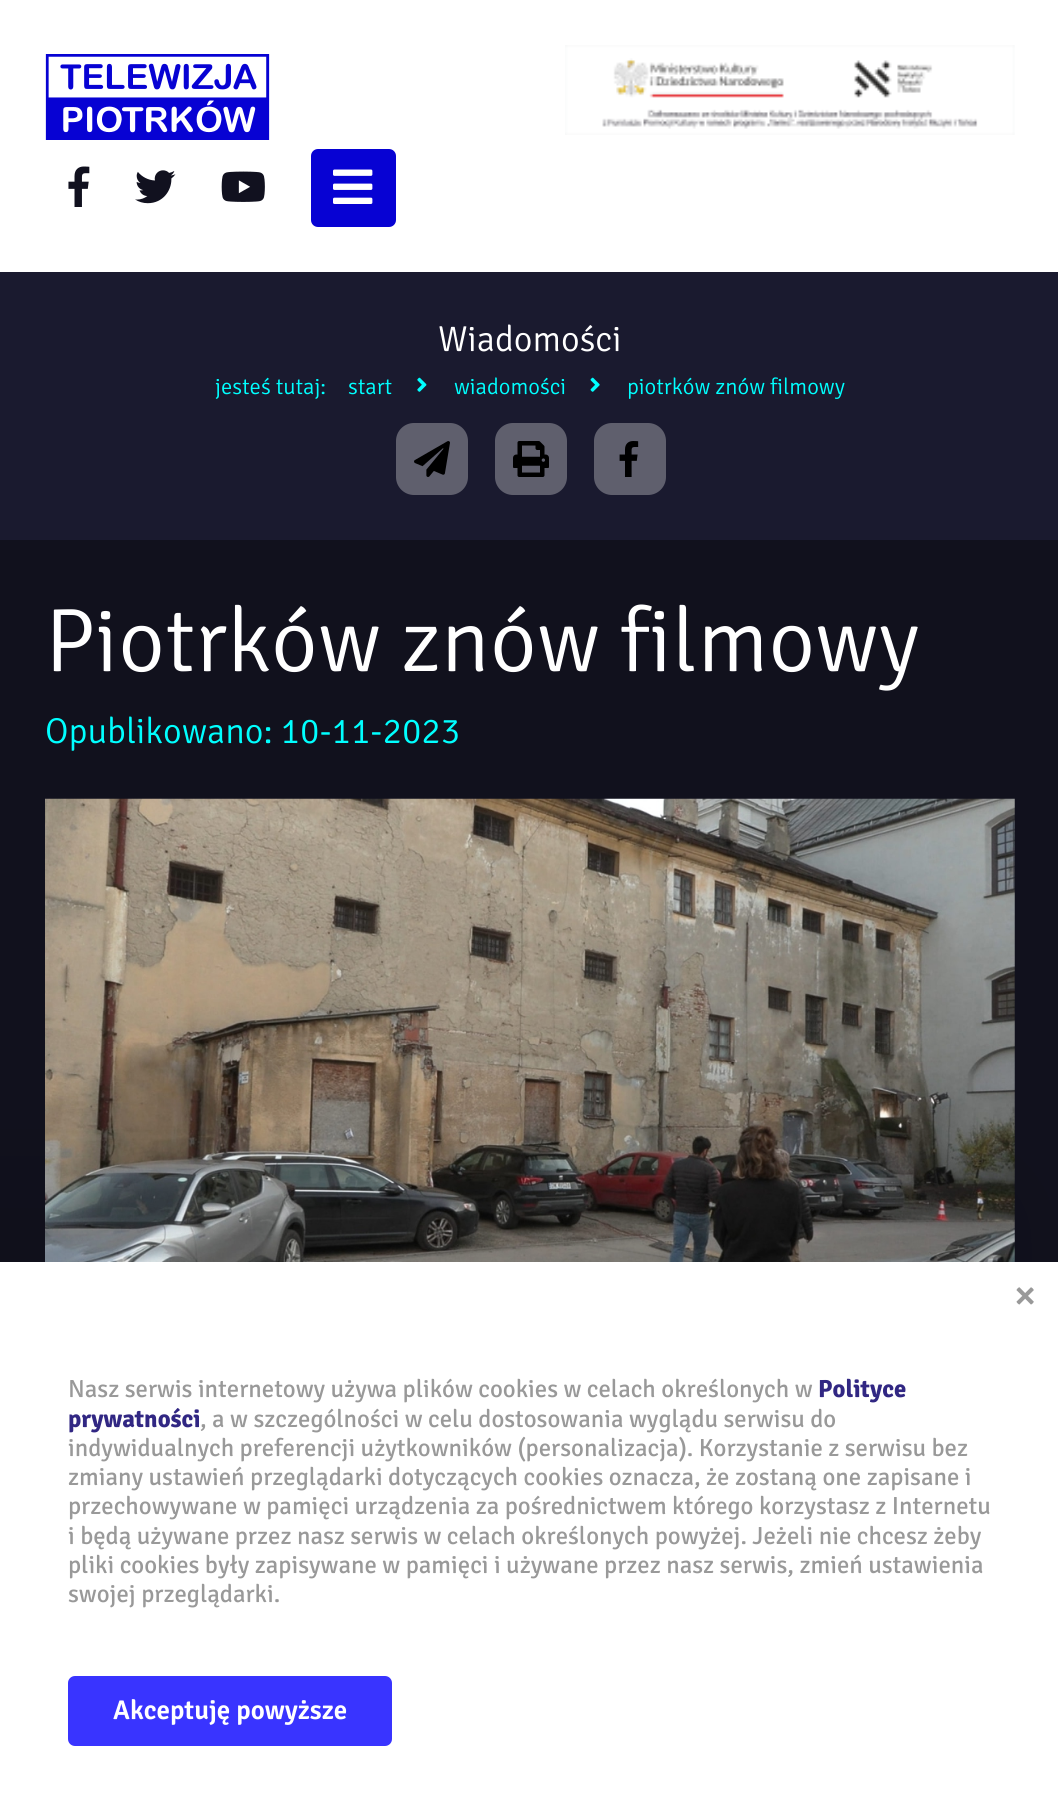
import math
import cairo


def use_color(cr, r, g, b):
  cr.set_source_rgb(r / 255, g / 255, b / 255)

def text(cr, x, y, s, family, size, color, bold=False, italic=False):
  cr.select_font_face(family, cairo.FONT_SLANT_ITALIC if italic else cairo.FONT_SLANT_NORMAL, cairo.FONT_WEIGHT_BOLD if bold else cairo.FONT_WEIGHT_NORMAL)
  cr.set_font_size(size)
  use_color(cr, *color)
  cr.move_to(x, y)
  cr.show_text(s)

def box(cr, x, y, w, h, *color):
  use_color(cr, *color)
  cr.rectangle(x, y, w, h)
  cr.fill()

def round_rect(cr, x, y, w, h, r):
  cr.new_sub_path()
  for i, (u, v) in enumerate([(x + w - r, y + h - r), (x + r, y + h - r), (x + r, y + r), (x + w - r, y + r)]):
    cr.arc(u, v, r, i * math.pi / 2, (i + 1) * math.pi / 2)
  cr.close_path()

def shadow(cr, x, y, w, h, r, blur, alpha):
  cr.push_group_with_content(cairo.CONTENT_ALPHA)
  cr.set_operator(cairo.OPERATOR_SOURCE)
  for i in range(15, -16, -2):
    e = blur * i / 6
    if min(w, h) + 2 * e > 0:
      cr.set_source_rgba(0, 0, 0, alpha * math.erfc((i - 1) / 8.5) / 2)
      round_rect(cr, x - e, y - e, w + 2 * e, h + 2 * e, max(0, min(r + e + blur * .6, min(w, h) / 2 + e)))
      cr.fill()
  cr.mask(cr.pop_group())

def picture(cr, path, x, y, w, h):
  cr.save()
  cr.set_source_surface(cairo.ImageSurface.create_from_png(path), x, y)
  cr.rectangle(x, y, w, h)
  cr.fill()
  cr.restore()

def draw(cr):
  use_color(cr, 17, 17, 29)
  cr.paint()
  box(cr, 0, 0, 1058, 272, 255, 255, 255)
  picture(cr, "img_01.png", 45, 54, 225, 86)
  picture(cr, "img_02.png", 565, 45, 450, 90)
  picture(cr, "img_03.png", 68, 166, 22, 41)
  picture(cr, "img_04.png", 135, 170, 41, 34)
  picture(cr, "img_05.png", 221, 171, 44, 31)
  use_color(cr, 7, 2, 211)
  round_rect(cr, 311, 149, 85, 78, 7)
  cr.fill()
  picture(cr, "img_06.png", 333, 169, 40, 35)
  box(cr, 0, 272, 1058, 268, 26, 26, 47)
  picture(cr, "img_07.png", 417, 377, 10, 15)
  picture(cr, "img_08.png", 590, 377, 10, 15)
  use_color(cr, 95, 95, 109)
  round_rect(cr, 396, 423, 72, 72, 18)
  cr.fill()
  picture(cr, "img_09.png", 414, 441, 36, 36)
  round_rect(cr, 495, 423, 72, 72, 18)
  cr.fill()
  picture(cr, "img_10.png", 513, 441, 36, 36)
  round_rect(cr, 594, 423, 72, 72, 18)
  cr.fill()
  picture(cr, "img_11.png", 619, 441, 20, 36)
  picture(cr, "img_12.png", 45, 798, 970, 464)
  use_color(cr, 0, 0, 0)
  shadow(cr, -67, 1195, 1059, 551, 0, 79, 0.1)
  box(cr, 0, 1262, 1058, 550, 255, 255, 255)
  use_color(cr, 57, 52, 255)
  round_rect(cr, 68, 1676, 324, 70, 7)
  cr.fill()
  text(cr, 438, 351, "Wiadomości", "Signika Light", 36, (255, 255, 255))
  text(cr, 215, 394, "jesteś tutaj:", "Signika Light", 22.5, (0, 255, 255))
  text(cr, 348, 394, "start", "Signika Light", 22.5, (0, 255, 255))
  text(cr, 454, 394, "wiadomości", "Signika Light", 22.5, (0, 255, 255))
  text(cr, 627, 394, "piotrków znów filmowy", "Signika Light", 22.5, (0, 255, 255))
  text(cr, 45, 671, "Piotrków znów filmowy", "Signika Light", 90, (255, 255, 255))
  text(cr, 45, 743, "Opublikowano: 10-11-2023", "Signika Light", 36, (0, 255, 255))
  text(cr, 1013, 1310, "×", "Signika", 45, (153, 153, 153))
  text(cr, 68, 1397, "Nasz serwis internetowy używa plików cookies w celach określonych w", "Signika", 24.75, (153, 153, 153))
  text(cr, 818, 1397, "Polityce", "Signika", 24.75, (49, 39, 131), bold=True)
  text(cr, 68, 1427, "prywatności", "Signika", 24.75, (49, 39, 131), bold=True)
  text(cr, 200, 1427, ", a w szczególności w celu dostosowania wyglądu serwisu do", "Signika", 24.75, (153, 153, 153))
  text(cr, 68, 1456, "indywidualnych preferencji użytkowników (personalizacja). Korzystanie z serwisu bez", "Signika", 24.75, (153, 153, 153))
  text(cr, 68, 1485, "zmiany ustawień przeglądarki dotyczących cookies oznacza, że zostaną one zapisane i", "Signika", 24.75, (153, 153, 153))
  text(cr, 68, 1514, "przechowywane w pamięci urządzenia za pośrednictwem którego korzystasz z Internetu", "Signika", 24.75, (153, 153, 153))
  text(cr, 68, 1544, "i będą używane przez nasz serwis w celach określonych powyżej. Jeżeli nie chcesz żeby", "Signika", 24.75, (153, 153, 153))
  text(cr, 68, 1573, "pliki cookies były zapisywane w pamięci i używane przez nasz serwis, zmień ustawienia", "Signika", 24.75, (153, 153, 153))
  text(cr, 68, 1602, "swojej przeglądarki.", "Signika", 24.75, (153, 153, 153))
  text(cr, 113, 1719, "Akceptuję powyższe", "Signika SemiBold", 27, (255, 255, 255))


surface = cairo.ImageSurface(cairo.FORMAT_RGB24, 1058, 1812)
cr = cairo.Context(surface)
options = cairo.FontOptions()
options.set_hint_metrics(cairo.HINT_METRICS_OFF)
options.set_hint_style(cairo.HINT_STYLE_NONE)
cr.set_font_options(options)
cr.set_miter_limit(4)
draw(cr)
surface.write_to_png("out.png")
